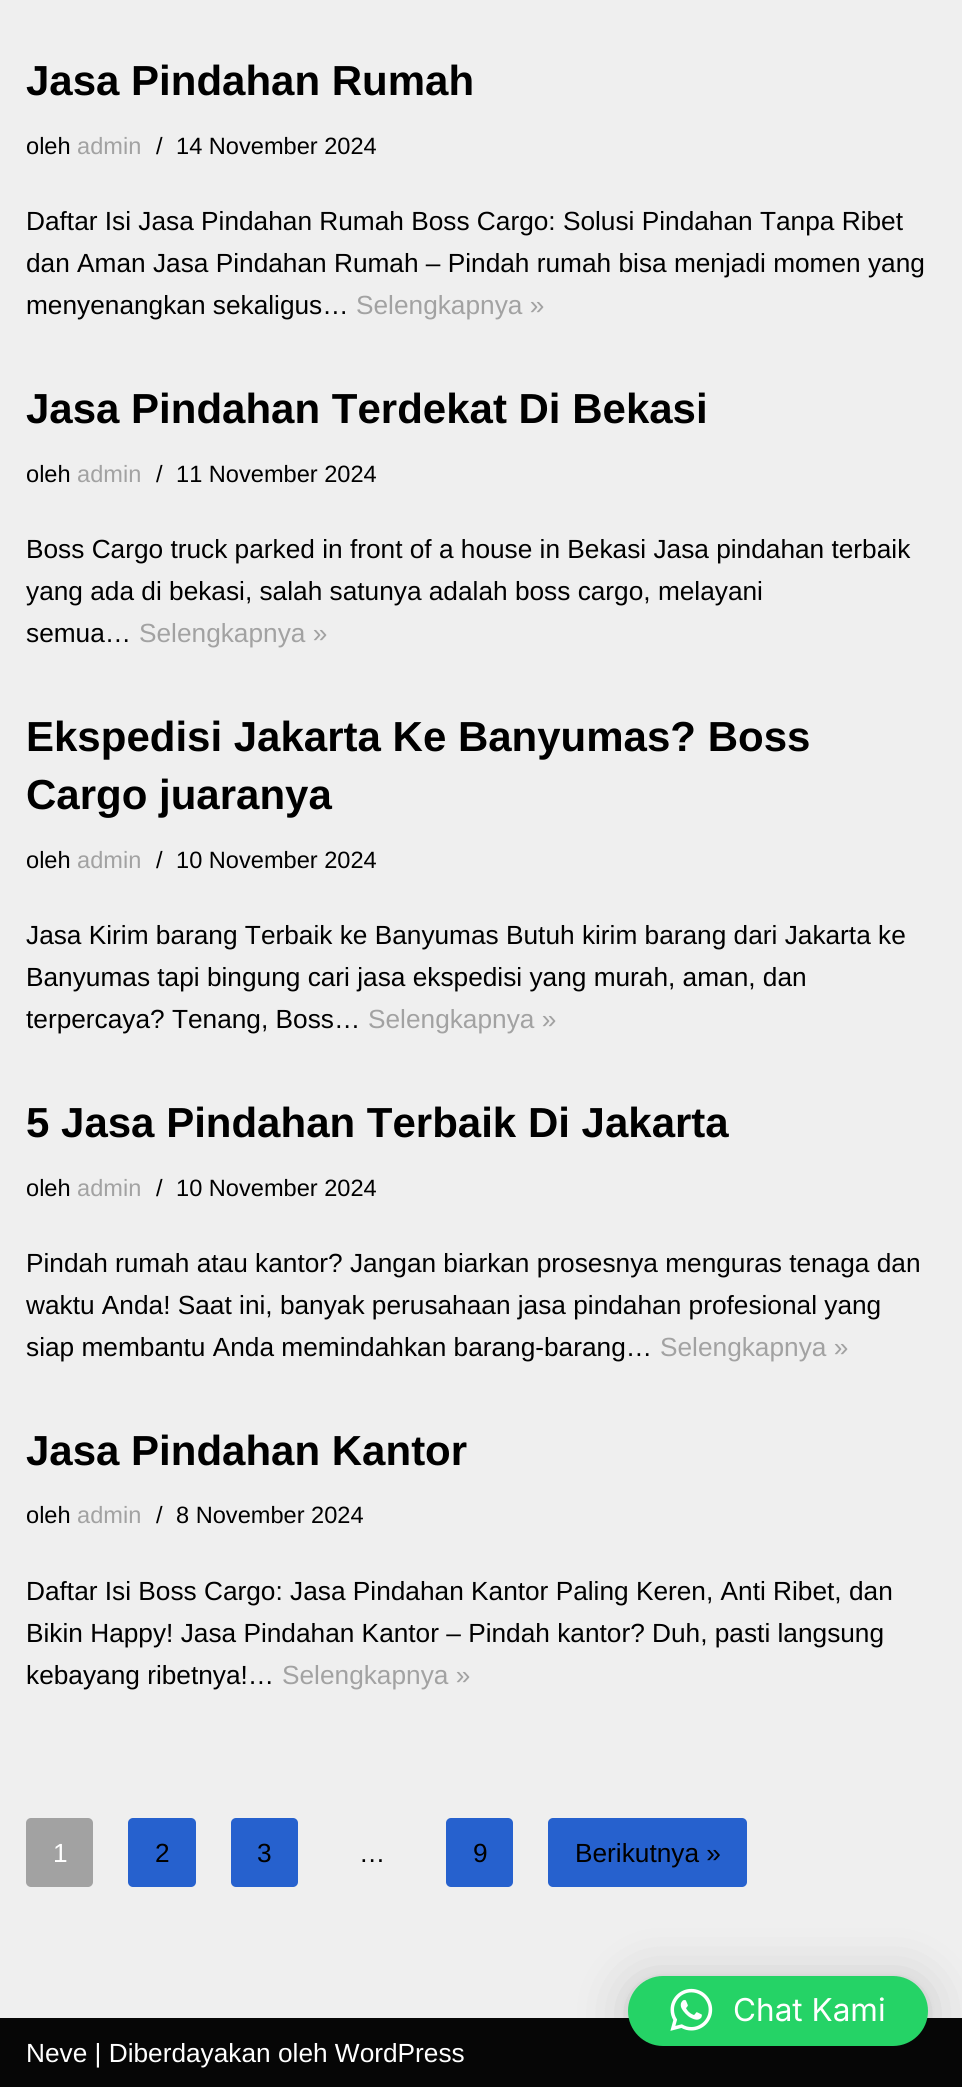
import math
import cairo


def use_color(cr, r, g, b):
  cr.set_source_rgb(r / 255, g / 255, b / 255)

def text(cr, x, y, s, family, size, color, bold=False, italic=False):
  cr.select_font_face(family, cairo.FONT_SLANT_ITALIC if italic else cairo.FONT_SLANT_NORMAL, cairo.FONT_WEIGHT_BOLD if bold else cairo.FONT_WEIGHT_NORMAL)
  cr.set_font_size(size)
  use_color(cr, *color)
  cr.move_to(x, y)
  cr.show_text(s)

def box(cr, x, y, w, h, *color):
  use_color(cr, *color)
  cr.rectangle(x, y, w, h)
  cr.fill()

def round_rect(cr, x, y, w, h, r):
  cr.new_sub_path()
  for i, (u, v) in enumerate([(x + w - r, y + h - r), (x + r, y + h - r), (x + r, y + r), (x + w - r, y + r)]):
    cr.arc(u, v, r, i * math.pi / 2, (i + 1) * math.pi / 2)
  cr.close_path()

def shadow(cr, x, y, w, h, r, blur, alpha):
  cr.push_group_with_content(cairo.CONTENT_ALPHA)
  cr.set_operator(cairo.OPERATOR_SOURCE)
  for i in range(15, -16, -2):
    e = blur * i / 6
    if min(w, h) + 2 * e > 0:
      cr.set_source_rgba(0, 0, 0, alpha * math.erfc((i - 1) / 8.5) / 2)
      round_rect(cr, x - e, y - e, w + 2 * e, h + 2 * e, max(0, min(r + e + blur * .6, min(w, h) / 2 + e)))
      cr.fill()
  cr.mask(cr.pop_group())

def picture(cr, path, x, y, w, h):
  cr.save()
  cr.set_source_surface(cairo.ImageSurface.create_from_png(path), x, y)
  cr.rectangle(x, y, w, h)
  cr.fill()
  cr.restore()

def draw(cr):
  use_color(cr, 239, 239, 239)
  cr.paint()
  use_color(cr, 162, 162, 162)
  round_rect(cr, 26, 1818, 67, 69, 5)
  cr.fill()
  use_color(cr, 38, 97, 206)
  round_rect(cr, 128, 1818, 68, 69, 5)
  cr.fill()
  round_rect(cr, 231, 1818, 67, 69, 5)
  cr.fill()
  round_rect(cr, 446, 1818, 67, 69, 5)
  cr.fill()
  round_rect(cr, 548, 1818, 199, 69, 5)
  cr.fill()
  box(cr, 0, 2018, 962, 69, 6, 6, 6)
  use_color(cr, 0, 0, 0)
  shadow(cr, 628, 1979, 300, 70, 35, 28, 0.16)
  shadow(cr, 628, 1978, 300, 70, 35, 5, 0.06)
  use_color(cr, 37, 211, 102)
  round_rect(cr, 628, 1976, 300, 70, 35)
  cr.fill()
  picture(cr, "img_01.png", 670, 1988, 43, 43)
  text(cr, 26, 95, "Jasa Pindahan Rumah", "Liberation Sans", 42, (0, 0, 0), bold=True)
  text(cr, 26, 154, "oleh", "Liberation Sans", 23.6, (0, 0, 0))
  text(cr, 77, 154, "admin", "Liberation Sans", 23.6, (162, 162, 162))
  text(cr, 156, 154, "/", "Liberation Sans", 23.6, (0, 0, 0))
  text(cr, 176, 154, "14 November 2024", "Liberation Sans", 23.6, (0, 0, 0))
  text(cr, 26, 230, "Daftar Isi Jasa Pindahan Rumah Boss Cargo: Solusi Pindahan Tanpa Ribet", "Liberation Sans", 26.25, (0, 0, 0))
  text(cr, 26, 272, "dan Aman Jasa Pindahan Rumah – Pindah rumah bisa menjadi momen yang", "Liberation Sans", 26.25, (0, 0, 0))
  text(cr, 26, 314, "menyenangkan sekaligus…", "Liberation Sans", 26.25, (0, 0, 0))
  text(cr, 356, 314, "Selengkapnya »", "Liberation Sans", 26.25, (162, 162, 162))
  text(cr, 26, 423, "Jasa Pindahan Terdekat Di Bekasi", "Liberation Sans", 42, (0, 0, 0), bold=True)
  text(cr, 26, 482, "oleh", "Liberation Sans", 23.6, (0, 0, 0))
  text(cr, 77, 482, "admin", "Liberation Sans", 23.6, (162, 162, 162))
  text(cr, 156, 482, "/", "Liberation Sans", 23.6, (0, 0, 0))
  text(cr, 176, 482, "11 November 2024", "Liberation Sans", 23.6, (0, 0, 0))
  text(cr, 26, 558, "Boss Cargo truck parked in front of a house in Bekasi Jasa pindahan terbaik", "Liberation Sans", 26.25, (0, 0, 0))
  text(cr, 26, 600, "yang ada di bekasi, salah satunya adalah boss cargo, melayani", "Liberation Sans", 26.25, (0, 0, 0))
  text(cr, 26, 642, "semua…", "Liberation Sans", 26.25, (0, 0, 0))
  text(cr, 139, 642, "Selengkapnya »", "Liberation Sans", 26.25, (162, 162, 162))
  text(cr, 26, 751, "Ekspedisi Jakarta Ke Banyumas? Boss", "Liberation Sans", 42, (0, 0, 0), bold=True)
  text(cr, 26, 809, "Cargo juaranya", "Liberation Sans", 42, (0, 0, 0), bold=True)
  text(cr, 26, 868, "oleh", "Liberation Sans", 23.6, (0, 0, 0))
  text(cr, 77, 868, "admin", "Liberation Sans", 23.6, (162, 162, 162))
  text(cr, 156, 868, "/", "Liberation Sans", 23.6, (0, 0, 0))
  text(cr, 176, 868, "10 November 2024", "Liberation Sans", 23.6, (0, 0, 0))
  text(cr, 26, 944, "Jasa Kirim barang Terbaik ke Banyumas Butuh kirim barang dari Jakarta ke", "Liberation Sans", 26.25, (0, 0, 0))
  text(cr, 26, 986, "Banyumas tapi bingung cari jasa ekspedisi yang murah, aman, dan", "Liberation Sans", 26.25, (0, 0, 0))
  text(cr, 26, 1028, "terpercaya? Tenang, Boss…", "Liberation Sans", 26.25, (0, 0, 0))
  text(cr, 368, 1028, "Selengkapnya »", "Liberation Sans", 26.25, (162, 162, 162))
  text(cr, 26, 1137, "5 Jasa Pindahan Terbaik Di Jakarta", "Liberation Sans", 42, (0, 0, 0), bold=True)
  text(cr, 26, 1196, "oleh", "Liberation Sans", 23.6, (0, 0, 0))
  text(cr, 77, 1196, "admin", "Liberation Sans", 23.6, (162, 162, 162))
  text(cr, 156, 1196, "/", "Liberation Sans", 23.6, (0, 0, 0))
  text(cr, 176, 1196, "10 November 2024", "Liberation Sans", 23.6, (0, 0, 0))
  text(cr, 26, 1272, "Pindah rumah atau kantor? Jangan biarkan prosesnya menguras tenaga dan", "Liberation Sans", 26.25, (0, 0, 0))
  text(cr, 26, 1314, "waktu Anda! Saat ini, banyak perusahaan jasa pindahan profesional yang", "Liberation Sans", 26.25, (0, 0, 0))
  text(cr, 26, 1356, "siap membantu Anda memindahkan barang-barang…", "Liberation Sans", 26.25, (0, 0, 0))
  text(cr, 660, 1356, "Selengkapnya »", "Liberation Sans", 26.25, (162, 162, 162))
  text(cr, 26, 1465, "Jasa Pindahan Kantor", "Liberation Sans", 42, (0, 0, 0), bold=True)
  text(cr, 26, 1523, "oleh", "Liberation Sans", 23.6, (0, 0, 0))
  text(cr, 77, 1523, "admin", "Liberation Sans", 23.6, (162, 162, 162))
  text(cr, 156, 1523, "/", "Liberation Sans", 23.6, (0, 0, 0))
  text(cr, 176, 1523, "8 November 2024", "Liberation Sans", 23.6, (0, 0, 0))
  text(cr, 26, 1600, "Daftar Isi Boss Cargo: Jasa Pindahan Kantor Paling Keren, Anti Ribet, dan", "Liberation Sans", 26.25, (0, 0, 0))
  text(cr, 26, 1642, "Bikin Happy! Jasa Pindahan Kantor – Pindah kantor? Duh, pasti langsung", "Liberation Sans", 26.25, (0, 0, 0))
  text(cr, 26, 1684, "kebayang ribetnya!…", "Liberation Sans", 26.25, (0, 0, 0))
  text(cr, 282, 1684, "Selengkapnya »", "Liberation Sans", 26.25, (162, 162, 162))
  text(cr, 53, 1862, "1", "Liberation Sans", 26.25, (255, 255, 255))
  text(cr, 155, 1862, "2", "Liberation Sans", 26.25, (0, 0, 0))
  text(cr, 257, 1862, "3", "Liberation Sans", 26.25, (0, 0, 0))
  text(cr, 359, 1862, "…", "Liberation Sans", 26.25, (0, 0, 0))
  text(cr, 473, 1862, "9", "Liberation Sans", 26.25, (0, 0, 0))
  text(cr, 575, 1862, "Berikutnya »", "Liberation Sans", 26.25, (0, 0, 0))
  text(cr, 26, 2062, "Neve | Diberdayakan oleh WordPress", "Liberation Sans", 26.25, (255, 255, 255))
  text(cr, 733, 2021, "Chat Kami", "Inter", 31.5, (255, 255, 255))


surface = cairo.ImageSurface(cairo.FORMAT_RGB24, 962, 2087)
cr = cairo.Context(surface)
options = cairo.FontOptions()
options.set_hint_metrics(cairo.HINT_METRICS_OFF)
options.set_hint_style(cairo.HINT_STYLE_NONE)
cr.set_font_options(options)
cr.set_miter_limit(4)
draw(cr)
surface.write_to_png("out.png")
